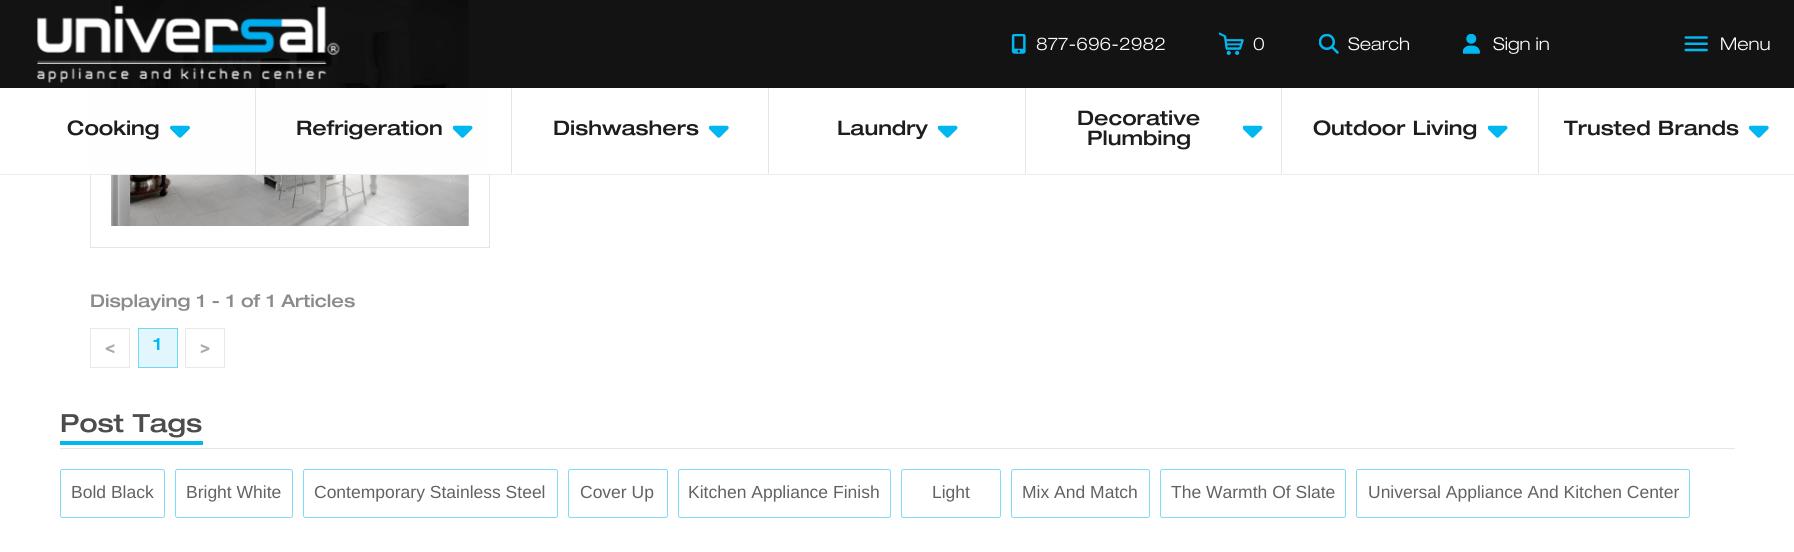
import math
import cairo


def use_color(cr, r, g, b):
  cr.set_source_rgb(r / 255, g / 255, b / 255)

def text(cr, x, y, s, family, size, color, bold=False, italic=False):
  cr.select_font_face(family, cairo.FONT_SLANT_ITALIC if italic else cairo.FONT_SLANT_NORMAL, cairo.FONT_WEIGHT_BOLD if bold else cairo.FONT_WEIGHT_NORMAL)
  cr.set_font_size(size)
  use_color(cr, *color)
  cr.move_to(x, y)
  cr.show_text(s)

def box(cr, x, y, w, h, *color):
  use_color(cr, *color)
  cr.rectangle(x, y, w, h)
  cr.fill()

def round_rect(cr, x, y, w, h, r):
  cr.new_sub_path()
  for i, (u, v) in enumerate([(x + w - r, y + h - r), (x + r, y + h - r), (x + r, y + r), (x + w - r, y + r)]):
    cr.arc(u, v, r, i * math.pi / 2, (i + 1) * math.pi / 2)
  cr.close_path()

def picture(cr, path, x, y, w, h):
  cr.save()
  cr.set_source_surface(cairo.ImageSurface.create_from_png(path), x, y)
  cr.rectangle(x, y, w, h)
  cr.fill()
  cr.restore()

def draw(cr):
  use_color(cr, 255, 255, 255)
  cr.paint()
  cr.rectangle(90.5, -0.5, 399, 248)
  use_color(cr, 229, 229, 229)
  cr.set_line_width(1)
  cr.stroke()
  picture(cr, "img_10.png", 111, 0, 358, 226)
  cr.set_source_rgba(0, 0, 0, 0.5)
  cr.rectangle(0, 0, 1794, 88)
  cr.fill()
  cr.set_source_rgba(0, 0, 0, 0.85)
  cr.rectangle(0, 0, 1794, 88)
  cr.fill()
  picture(cr, "img_01.png", 37, 5, 303, 78)
  picture(cr, "img_02.png", 1011, 34, 15, 20)
  picture(cr, "img_03.png", 1219, 32, 25, 23)
  picture(cr, "img_04.png", 1319, 34, 20, 20)
  picture(cr, "img_05.png", 1463, 34, 17, 20)
  picture(cr, "img_06.png", 1684, 36, 24, 16)
  box(cr, 90, 88, 400, 87, 254, 254, 254)
  use_color(cr, 229, 229, 229)
  cr.new_path()
  cr.move_to(256, 88)
  cr.line_to(256, 175)
  cr.line_to(255, 174)
  cr.line_to(255, 89)
  cr.close_path()
  cr.fill()
  use_color(cr, 235, 235, 235)
  cr.new_path()
  cr.move_to(256, 175)
  cr.line_to(0, 175)
  cr.line_to(1, 174)
  cr.line_to(255, 174)
  cr.close_path()
  cr.fill()
  picture(cr, "img_07.png", 170, 125, 20, 13)
  use_color(cr, 229, 229, 229)
  cr.new_path()
  cr.move_to(512, 88)
  cr.line_to(512, 175)
  cr.line_to(511, 174)
  cr.line_to(511, 89)
  cr.close_path()
  cr.fill()
  use_color(cr, 235, 235, 235)
  cr.new_path()
  cr.move_to(512, 175)
  cr.line_to(256, 175)
  cr.line_to(258, 174)
  cr.line_to(511, 174)
  cr.close_path()
  cr.fill()
  picture(cr, "img_08.png", 453, 125, 20, 13)
  use_color(cr, 229, 229, 229)
  cr.new_path()
  cr.move_to(769, 88)
  cr.line_to(769, 175)
  cr.line_to(768, 174)
  cr.line_to(768, 89)
  cr.close_path()
  cr.fill()
  use_color(cr, 235, 235, 235)
  cr.new_path()
  cr.move_to(769, 175)
  cr.line_to(512, 175)
  cr.line_to(514, 174)
  cr.line_to(768, 174)
  cr.close_path()
  cr.fill()
  picture(cr, "img_09.png", 709, 125, 20, 13)
  use_color(cr, 229, 229, 229)
  cr.new_path()
  cr.move_to(1026, 88)
  cr.line_to(1026, 175)
  cr.line_to(1025, 174)
  cr.line_to(1025, 89)
  cr.close_path()
  cr.fill()
  use_color(cr, 235, 235, 235)
  cr.new_path()
  cr.move_to(1026, 175)
  cr.line_to(769, 175)
  cr.line_to(770, 174)
  cr.line_to(1025, 174)
  cr.close_path()
  cr.fill()
  picture(cr, "img_08.png", 938, 125, 20, 13)
  use_color(cr, 229, 229, 229)
  cr.new_path()
  cr.move_to(1282, 88)
  cr.line_to(1282, 175)
  cr.line_to(1281, 174)
  cr.line_to(1281, 89)
  cr.close_path()
  cr.fill()
  use_color(cr, 235, 235, 235)
  cr.new_path()
  cr.move_to(1282, 175)
  cr.line_to(1026, 175)
  cr.line_to(1028, 174)
  cr.line_to(1281, 174)
  cr.close_path()
  cr.fill()
  picture(cr, "img_08.png", 1243, 125, 20, 13)
  use_color(cr, 229, 229, 229)
  cr.new_path()
  cr.move_to(1539, 88)
  cr.line_to(1539, 175)
  cr.line_to(1538, 174)
  cr.line_to(1538, 89)
  cr.close_path()
  cr.fill()
  use_color(cr, 235, 235, 235)
  cr.new_path()
  cr.move_to(1539, 175)
  cr.line_to(1282, 175)
  cr.line_to(1284, 174)
  cr.line_to(1538, 174)
  cr.close_path()
  cr.fill()
  picture(cr, "img_08.png", 1488, 125, 20, 13)
  cr.new_path()
  cr.move_to(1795, 175)
  cr.line_to(1539, 175)
  cr.line_to(1540, 174)
  cr.line_to(1794, 174)
  cr.close_path()
  cr.fill()
  picture(cr, "img_09.png", 1749, 125, 20, 13)
  cr.rectangle(90.5, 328.5, 39, 39)
  use_color(cr, 233, 233, 233)
  cr.stroke()
  use_color(cr, 225, 246, 253)
  cr.rectangle(138.5, 328.5, 39, 39)
  cr.fill_preserve()
  use_color(cr, 113, 215, 246)
  cr.stroke()
  cr.rectangle(185.5, 328.5, 39, 39)
  use_color(cr, 233, 233, 233)
  cr.stroke()
  box(cr, 60, 441, 143, 4, 1, 183, 239)
  box(cr, 60, 448, 1675, 1, 230, 230, 230)
  round_rect(cr, 60.5, 469.5, 104, 48, 2)
  use_color(cr, 128, 219, 247)
  cr.stroke()
  round_rect(cr, 175.5, 469.5, 117, 48, 2)
  cr.stroke()
  round_rect(cr, 303.5, 469.5, 254, 48, 2)
  cr.stroke()
  round_rect(cr, 568.5, 469.5, 99, 48, 2)
  cr.stroke()
  round_rect(cr, 678.5, 469.5, 212, 48, 2)
  cr.stroke()
  round_rect(cr, 901.5, 469.5, 99, 48, 2)
  cr.stroke()
  round_rect(cr, 1011.5, 469.5, 138, 48, 2)
  cr.stroke()
  round_rect(cr, 1160.5, 469.5, 185, 48, 2)
  cr.stroke()
  round_rect(cr, 1356.5, 469.5, 333, 48, 2)
  cr.stroke()
  text(cr, 1036, 50, "877-696-2982", "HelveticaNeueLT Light", 17.5, (255, 255, 255))
  text(cr, 1253, 50, "0", "HelveticaNeueLT Light", 17.5, (255, 255, 255))
  text(cr, 1348, 50, "Search", "HelveticaNeueLT Light", 17.5, (255, 255, 255))
  text(cr, 1493, 50, "Sign in", "HelveticaNeueLT Light", 17.5, (255, 255, 255))
  text(cr, 1720, 50, "Menu", "HelveticaNeueLT Light", 17.5, (255, 255, 255))
  text(cr, 67, 135, "Cooking", "Helvetica Neue Medium", 20, (29, 29, 27))
  text(cr, 296, 135, "Refrigeration", "Helvetica Neue Medium", 20, (29, 29, 27))
  text(cr, 553, 135, "Dishwashers", "Helvetica Neue Medium", 20, (29, 29, 27))
  text(cr, 837, 135, "Laundry", "Helvetica Neue Medium", 20, (29, 29, 27))
  text(cr, 1077, 125, "Decorative", "Helvetica Neue Medium", 20, (29, 29, 27))
  text(cr, 1087, 145, "Plumbing", "Helvetica Neue Medium", 20, (29, 29, 27))
  text(cr, 1313, 135, "Outdoor Living", "Helvetica Neue Medium", 20, (29, 29, 27))
  text(cr, 1564, 135, "Trusted Brands", "Helvetica Neue Medium", 20, (29, 29, 27))
  text(cr, 90, 307, "Displaying 1 - 1 of 1 Articles", "Helvetica Neue Medium", 17.5, (139, 139, 139))
  text(cr, 105, 353, "<", "HelveticaNeueLT", 17, (171, 171, 171), bold=True)
  text(cr, 153, 350, "1", "Helvetica Neue Medium", 17, (1, 183, 239))
  text(cr, 200, 353, ">", "HelveticaNeueLT", 17, (171, 171, 171), bold=True)
  text(cr, 60, 432, "Post Tags", "Helvetica Neue Medium", 25, (76, 76, 76))
  text(cr, 71, 498, "Bold Black", "Liberation Sans", 17.5, (98, 98, 98))
  text(cr, 186, 498, "Bright White", "Liberation Sans", 17.5, (98, 98, 98))
  text(cr, 314, 498, "Contemporary Stainless Steel", "Liberation Sans", 17.5, (98, 98, 98))
  text(cr, 580, 498, "Cover Up", "Liberation Sans", 17.5, (98, 98, 98))
  text(cr, 688, 498, "Kitchen Appliance Finish", "Liberation Sans", 17.5, (98, 98, 98))
  text(cr, 932, 498, "Light", "Liberation Sans", 17.5, (98, 98, 98))
  text(cr, 1022, 498, "Mix And Match", "Liberation Sans", 17.5, (98, 98, 98))
  text(cr, 1171, 498, "The Warmth Of Slate", "Liberation Sans", 17.5, (98, 98, 98))
  text(cr, 1368, 498, "Universal Appliance And Kitchen Center", "Liberation Sans", 17.5, (98, 98, 98))


surface = cairo.ImageSurface(cairo.FORMAT_RGB24, 1794, 552)
cr = cairo.Context(surface)
options = cairo.FontOptions()
options.set_hint_metrics(cairo.HINT_METRICS_OFF)
options.set_hint_style(cairo.HINT_STYLE_NONE)
cr.set_font_options(options)
cr.set_miter_limit(4)
draw(cr)
surface.write_to_png("out.png")
